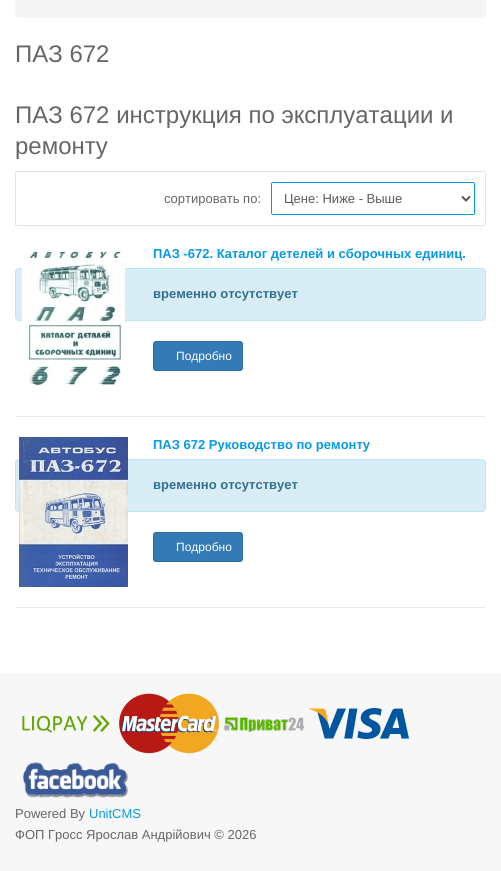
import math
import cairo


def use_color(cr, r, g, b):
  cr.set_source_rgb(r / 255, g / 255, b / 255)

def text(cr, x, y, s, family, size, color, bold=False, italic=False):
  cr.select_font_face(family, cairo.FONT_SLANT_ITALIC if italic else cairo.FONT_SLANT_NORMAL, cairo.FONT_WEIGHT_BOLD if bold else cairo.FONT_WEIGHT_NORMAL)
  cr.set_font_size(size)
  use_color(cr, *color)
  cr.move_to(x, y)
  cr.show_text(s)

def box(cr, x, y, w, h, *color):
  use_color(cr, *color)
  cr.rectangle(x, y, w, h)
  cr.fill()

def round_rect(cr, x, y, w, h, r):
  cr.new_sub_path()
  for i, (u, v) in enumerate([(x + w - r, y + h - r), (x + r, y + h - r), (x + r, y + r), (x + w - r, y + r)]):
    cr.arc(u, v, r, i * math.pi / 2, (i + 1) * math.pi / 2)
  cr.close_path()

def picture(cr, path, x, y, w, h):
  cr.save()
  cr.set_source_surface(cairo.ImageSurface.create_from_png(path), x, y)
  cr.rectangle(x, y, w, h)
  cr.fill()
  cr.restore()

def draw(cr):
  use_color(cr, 255, 255, 255)
  cr.paint()
  use_color(cr, 245, 245, 245)
  round_rect(cr, 15, -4, 471, 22, 4)
  cr.fill()
  round_rect(cr, 15.5, 171.5, 470, 54, 1.5)
  use_color(cr, 229, 229, 229)
  cr.set_line_width(1)
  cr.stroke()
  round_rect(cr, 271.5, 182.5, 203, 32, 1.5)
  use_color(cr, 6, 154, 228)
  cr.stroke()
  cr.new_path()
  cr.move_to(462, 196.5)
  cr.line_to(466, 200.5)
  cr.line_to(470, 196.5)
  use_color(cr, 89, 89, 89)
  cr.set_line_width(2)
  cr.stroke()
  box(cr, 15, 416, 471, 1, 233, 233, 233)
  use_color(cr, 217, 237, 247)
  round_rect(cr, 15.5, 268.5, 470, 52, 3.5)
  cr.fill_preserve()
  use_color(cr, 188, 232, 241)
  cr.set_line_width(1)
  cr.stroke()
  picture(cr, "img_01.png", 22, 250, 103, 136)
  use_color(cr, 51, 122, 183)
  round_rect(cr, 153.5, 341.5, 89, 29, 2.5)
  cr.fill_preserve()
  use_color(cr, 46, 109, 164)
  cr.stroke()
  box(cr, 15, 607, 471, 1, 233, 233, 233)
  use_color(cr, 217, 237, 247)
  round_rect(cr, 15.5, 459.5, 470, 52, 3.5)
  cr.fill_preserve()
  use_color(cr, 188, 232, 241)
  cr.stroke()
  picture(cr, "img_02.png", 19, 437, 109, 150)
  use_color(cr, 51, 122, 183)
  round_rect(cr, 153.5, 532.5, 89, 29, 2.5)
  cr.fill_preserve()
  use_color(cr, 46, 109, 164)
  cr.stroke()
  box(cr, 0, 673, 501, 198, 247, 247, 247)
  picture(cr, "img_03.png", 22, 714, 88, 19)
  picture(cr, "img_04.png", 119, 693, 100, 61)
  picture(cr, "img_05.png", 224, 717, 81, 15)
  picture(cr, "img_06.png", 309, 708, 100, 31)
  picture(cr, "img_07.png", 23, 762, 105, 36)
  text(cr, 15, 62, "ПАЗ 672", "Liberation Sans", 24, (102, 102, 102))
  text(cr, 15, 123, "ПАЗ 672 инструкция по эксплуатации и", "Liberation Sans", 24, (102, 102, 102))
  text(cr, 15, 154, "ремонту", "Liberation Sans", 24, (102, 102, 102))
  text(cr, 164, 203, "cортировать по:", "Liberation Sans", 13, (102, 102, 102))
  text(cr, 284, 203, "Цене: Ниже - Выше", "Liberation Sans", 13, (89, 89, 89))
  text(cr, 153, 258, "ПАЗ -672. Каталог детелей и сборочных единиц.", "Liberation Sans", 13, (6, 154, 228), bold=True)
  text(cr, 153, 298, "временно отсутствует", "Liberation Sans", 13, (49, 112, 143), bold=True)
  text(cr, 176, 360, "Подробно", "Liberation Sans", 12, (255, 255, 255))
  text(cr, 153, 449, "ПАЗ 672 Руководство по ремонту", "Liberation Sans", 13, (6, 154, 228), bold=True)
  text(cr, 153, 489, "временно отсутствует", "Liberation Sans", 13, (49, 112, 143), bold=True)
  text(cr, 176, 551, "Подробно", "Liberation Sans", 12, (255, 255, 255))
  text(cr, 15, 818, "Powered By", "Liberation Sans", 13, (102, 102, 102))
  text(cr, 89, 818, "UnitCMS", "Liberation Sans", 13, (6, 154, 228))
  text(cr, 15, 839, "ФОП Гросс Ярослав Андрійович © 2026", "Liberation Sans", 13, (102, 102, 102))


surface = cairo.ImageSurface(cairo.FORMAT_RGB24, 501, 871)
cr = cairo.Context(surface)
options = cairo.FontOptions()
options.set_hint_metrics(cairo.HINT_METRICS_OFF)
options.set_hint_style(cairo.HINT_STYLE_NONE)
cr.set_font_options(options)
cr.set_miter_limit(4)
draw(cr)
surface.write_to_png("out.png")
